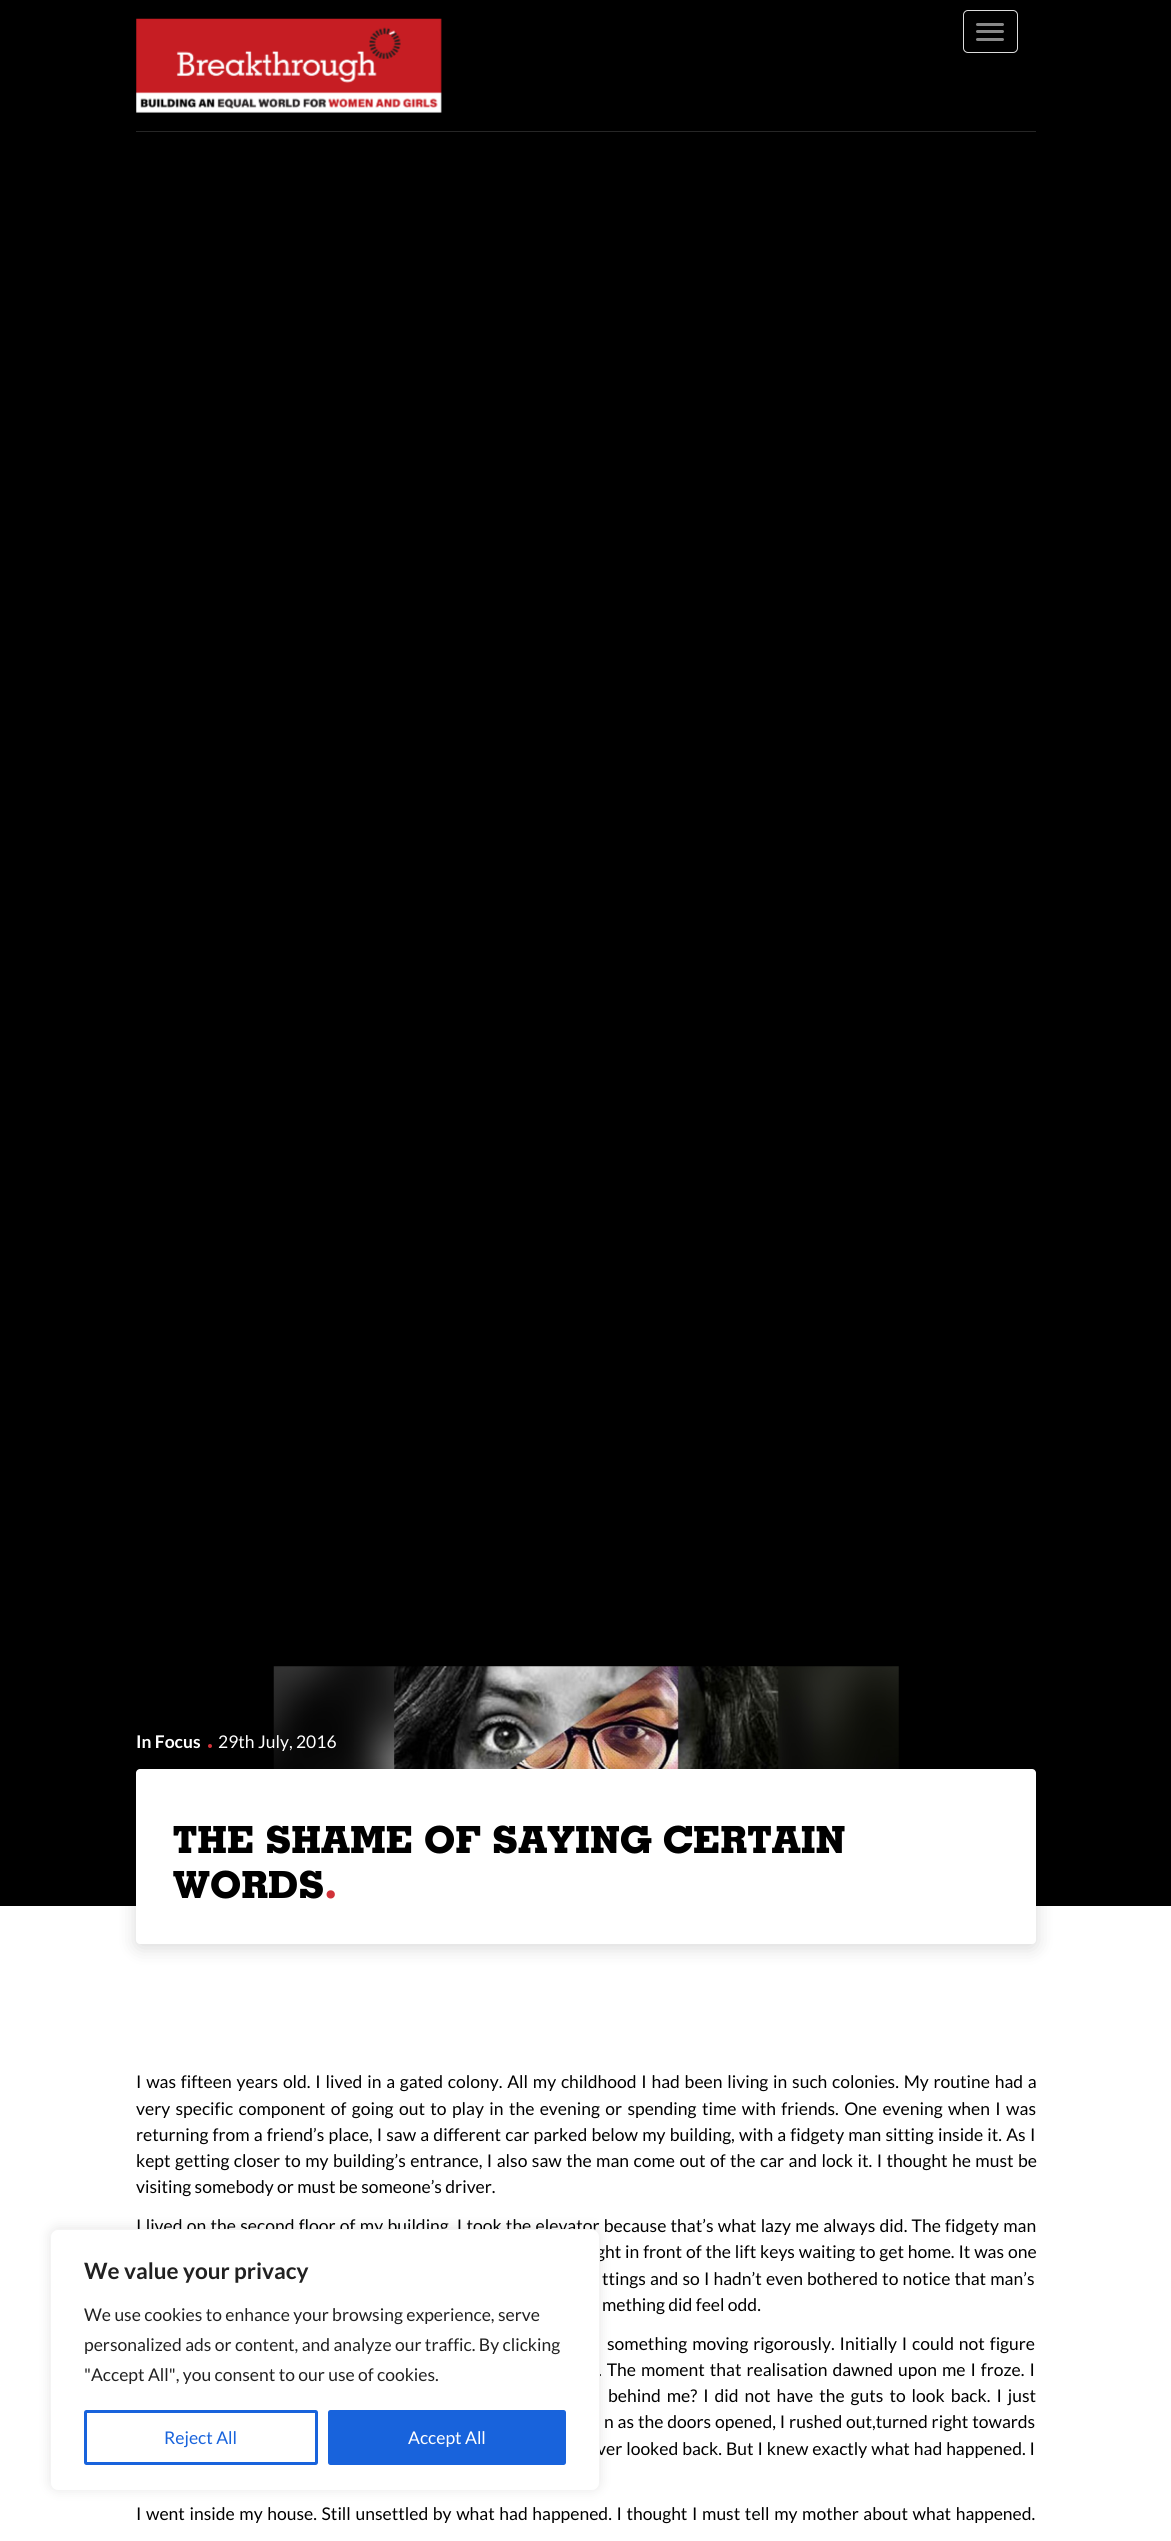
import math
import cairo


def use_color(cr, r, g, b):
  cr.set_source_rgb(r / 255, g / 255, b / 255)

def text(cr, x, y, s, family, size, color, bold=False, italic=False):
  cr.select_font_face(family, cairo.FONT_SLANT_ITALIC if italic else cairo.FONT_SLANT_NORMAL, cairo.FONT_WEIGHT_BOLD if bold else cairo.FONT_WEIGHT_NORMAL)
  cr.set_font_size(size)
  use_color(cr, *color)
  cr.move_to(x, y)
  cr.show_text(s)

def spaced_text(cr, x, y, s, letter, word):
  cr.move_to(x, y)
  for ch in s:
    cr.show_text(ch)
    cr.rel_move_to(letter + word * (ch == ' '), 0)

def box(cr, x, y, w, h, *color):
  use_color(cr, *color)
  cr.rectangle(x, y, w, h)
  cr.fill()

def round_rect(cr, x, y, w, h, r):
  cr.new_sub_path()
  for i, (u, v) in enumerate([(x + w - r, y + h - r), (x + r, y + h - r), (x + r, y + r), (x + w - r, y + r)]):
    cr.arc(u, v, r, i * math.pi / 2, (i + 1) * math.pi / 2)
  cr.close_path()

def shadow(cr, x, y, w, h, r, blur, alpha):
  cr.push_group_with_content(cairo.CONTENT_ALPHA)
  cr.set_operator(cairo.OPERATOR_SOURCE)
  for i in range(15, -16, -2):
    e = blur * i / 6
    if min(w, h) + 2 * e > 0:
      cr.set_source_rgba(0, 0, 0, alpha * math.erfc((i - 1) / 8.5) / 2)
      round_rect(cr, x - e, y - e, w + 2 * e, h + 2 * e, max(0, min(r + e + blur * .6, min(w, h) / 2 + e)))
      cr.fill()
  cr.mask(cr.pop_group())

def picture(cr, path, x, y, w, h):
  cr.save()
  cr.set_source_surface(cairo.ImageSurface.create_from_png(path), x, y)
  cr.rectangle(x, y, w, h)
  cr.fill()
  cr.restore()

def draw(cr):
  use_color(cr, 255, 255, 255)
  cr.paint()
  box(cr, 0, 0, 1171, 1906, 0, 0, 0)
  box(cr, 136, 131, 900, 1, 38, 38, 38)
  picture(cr, "img_01.png", 136, 18, 306, 95)
  round_rect(cr, 963.5, 10.5, 54, 42, 4.5)
  use_color(cr, 221, 221, 221)
  cr.set_line_width(1)
  cr.stroke()
  use_color(cr, 136, 136, 136)
  round_rect(cr, 976, 23, 28, 3, 1.5)
  cr.fill()
  round_rect(cr, 976, 30, 28, 3, 1.5)
  cr.fill()
  round_rect(cr, 976, 38, 28, 3, 1.5)
  cr.fill()
  picture(cr, "img_02.png", 273, 1666, 626, 103)
  use_color(cr, 0, 0, 0)
  shadow(cr, 136, 1773, 900, 175, 4, 9.5, 0.15)
  use_color(cr, 209, 50, 57)
  cr.arc(210, 1746, 2, 0, 2 * math.pi)
  cr.fill()
  use_color(cr, 255, 255, 255)
  round_rect(cr, 136, 1769, 900, 175, 4)
  cr.fill()
  use_color(cr, 172, 171, 171)
  shadow(cr, 50, 2228, 550, 262, 8, 6, 0.3)
  text(cr, 136, 1748, "In Focus", "Lato", 17.5, (255, 255, 255), bold=True)
  text(cr, 218, 1748, "29th July, 2016", "Lato", 17.5, (255, 255, 255))
  cr.select_font_face("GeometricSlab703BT", cairo.FONT_SLANT_NORMAL, cairo.FONT_WEIGHT_BOLD)
  cr.set_font_size(37.5)
  use_color(cr, 0, 0, 0)
  spaced_text(cr, 173, 1853, "THE SHAME OF SAYING CERTAIN", 0.5, 0)
  spaced_text(cr, 173, 1898, "WORDS", 0.5, 0)
  cr.set_font_size(41)
  use_color(cr, 209, 50, 57)
  spaced_text(cr, 325, 1898, ".", 0.5, 0)
  cr.select_font_face("Lato")
  cr.set_font_size(17.5)
  use_color(cr, 0, 0, 0)
  spaced_text(cr, 136, 2088, "I was fifteen years old. I lived in a gated colony. All my childhood I had been living in such colonies. My routine had a", 0, 1.4)
  spaced_text(cr, 136, 2115, "very specific component of going out to play in the evening or spending time with friends. One evening when I was", 0, 2)
  spaced_text(cr, 136, 2141, "returning from a friend’s place, I saw a different car parked below my building, with a fidgety man sitting inside it. As I", 0, 0.8)
  spaced_text(cr, 136, 2167, "kept getting closer to my building’s entrance, I also saw the man come out of the car and lock it. I thought he must be", 0, 1.1)
  text(cr, 136, 2193, "visiting somebody or must be someone’s driver.", "Lato", 17.5, (0, 0, 0))
  spaced_text(cr, 136, 2232, "I lived on the second floor of my building. I took the elevator because that’s what lazy me always did. The fidgety man", 0, 0.9)
  spaced_text(cr, 596, 2258, "ght in front of the lift keys waiting to get home. It was one", 0, 0.5)
  spaced_text(cr, 602, 2285, "ttings and so I hadn’t even bothered to notice that man’s", 0, 0.75)
  text(cr, 602, 2311, "mething did feel odd.", "Lato", 17.5, (0, 0, 0))
  spaced_text(cr, 607, 2350, "something moving rigorously. Initially I could not figure", 0, 1.5)
  spaced_text(cr, 598, 2376, ". The moment that realisation dawned upon me I froze. I", 0, 1.6)
  spaced_text(cr, 608, 2402, "behind me? I did not have the guts to look back. I just", 0, 2.6)
  spaced_text(cr, 604, 2428, "n as the doors opened, I rushed out,turned right towards", 0, 0.5)
  spaced_text(cr, 597, 2455, "ver looked back. But I knew exactly what had happened. I", 0, 0.6)
  spaced_text(cr, 136, 2520, "I went inside my house. Still unsettled by what had happened. I thought I must tell my mother about what happened.", 0, 1.25)
  use_color(cr, 255, 255, 255)
  round_rect(cr, 50.5, 2229.5, 549, 261, 7.5)
  cr.fill_preserve()
  use_color(cr, 244, 244, 244)
  cr.stroke()
  text(cr, 84, 2279, "We value your privacy", "Lato", 22.5, (33, 33, 33), bold=True)
  text(cr, 84, 2321, "We use cookies to enhance your browsing experience, serve", "Lato", 17.5, (33, 33, 33))
  text(cr, 84, 2351, "personalized ads or content, and analyze our traffic. By clicking", "Lato", 17.5, (33, 33, 33))
  text(cr, 84, 2381, "\"Accept All\", you consent to our use of cookies.", "Lato", 17.5, (33, 33, 33))
  round_rect(cr, 85.5, 2411.5, 231, 52, 1)
  use_color(cr, 24, 99, 220)
  cr.set_line_width(3)
  cr.stroke()
  text(cr, 164, 2444, "Reject All", "Lato", 17.5, (24, 99, 220))
  round_rect(cr, 329.5, 2411.5, 235, 52, 1)
  cr.fill_preserve()
  cr.stroke()
  text(cr, 408, 2444, "Accept All", "Lato", 17.5, (255, 255, 255))


surface = cairo.ImageSurface(cairo.FORMAT_RGB24, 1171, 2541)
cr = cairo.Context(surface)
options = cairo.FontOptions()
options.set_hint_metrics(cairo.HINT_METRICS_OFF)
options.set_hint_style(cairo.HINT_STYLE_NONE)
cr.set_font_options(options)
cr.set_miter_limit(4)
draw(cr)
surface.write_to_png("out.png")
